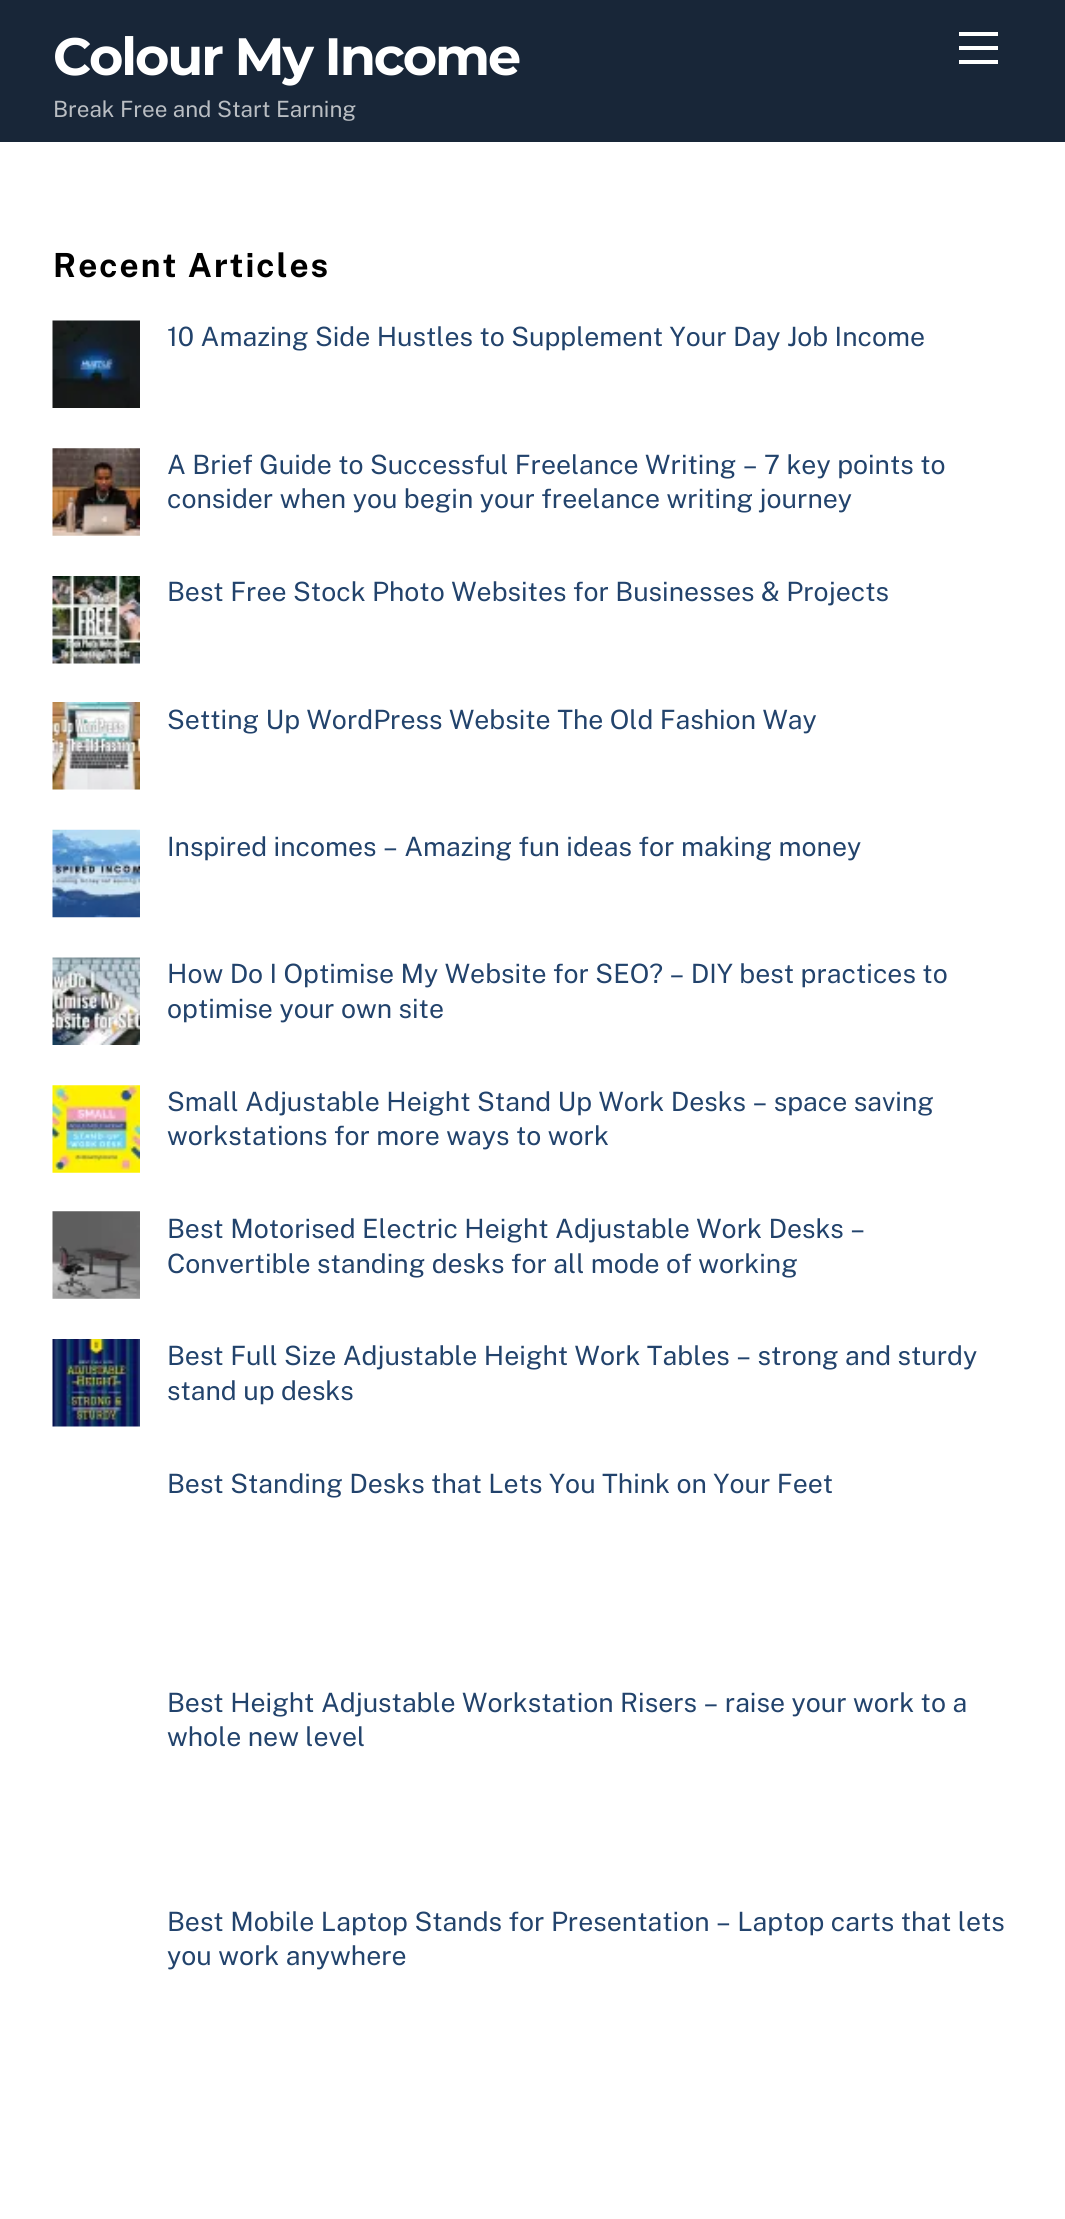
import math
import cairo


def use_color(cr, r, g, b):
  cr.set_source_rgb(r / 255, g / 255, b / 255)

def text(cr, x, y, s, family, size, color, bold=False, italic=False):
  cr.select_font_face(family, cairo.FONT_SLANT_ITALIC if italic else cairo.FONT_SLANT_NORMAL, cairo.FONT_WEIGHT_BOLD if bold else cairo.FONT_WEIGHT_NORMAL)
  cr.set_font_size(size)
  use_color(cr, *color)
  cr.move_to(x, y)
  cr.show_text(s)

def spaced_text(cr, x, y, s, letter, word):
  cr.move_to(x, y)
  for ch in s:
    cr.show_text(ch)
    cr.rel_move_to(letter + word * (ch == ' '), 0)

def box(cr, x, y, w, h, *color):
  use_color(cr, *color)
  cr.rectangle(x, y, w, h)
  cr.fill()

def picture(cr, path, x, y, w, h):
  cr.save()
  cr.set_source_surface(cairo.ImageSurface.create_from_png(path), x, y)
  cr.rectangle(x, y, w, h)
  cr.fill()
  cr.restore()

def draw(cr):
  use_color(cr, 255, 255, 255)
  cr.paint()
  box(cr, 0, 0, 1065, 142, 24, 38, 56)
  box(cr, 959, 60, 39, 4, 255, 255, 255)
  box(cr, 959, 32, 39, 4, 255, 255, 255)
  box(cr, 959, 46, 39, 4, 255, 255, 255)
  picture(cr, "img_01.png", 52, 320, 88, 88)
  picture(cr, "img_02.png", 52, 448, 88, 88)
  picture(cr, "img_03.png", 52, 576, 88, 88)
  picture(cr, "img_04.png", 52, 702, 88, 88)
  picture(cr, "img_05.png", 52, 829, 88, 89)
  picture(cr, "img_06.png", 52, 957, 88, 88)
  picture(cr, "img_07.png", 52, 1085, 88, 88)
  picture(cr, "img_08.png", 52, 1211, 88, 88)
  picture(cr, "img_09.png", 52, 1339, 88, 88)
  cr.select_font_face("Montserrat", cairo.FONT_SLANT_NORMAL, cairo.FONT_WEIGHT_BOLD)
  cr.set_font_size(52.5)
  spaced_text(cr, 53, 75, "Colour My Income", -2.1, 0)
  text(cr, 53, 117, "Break Free and Start Earning", "Public Sans", 22.4, (186, 190, 195))
  cr.select_font_face("Public Sans", cairo.FONT_SLANT_NORMAL, cairo.FONT_WEIGHT_BOLD)
  cr.set_font_size(33.25)
  use_color(cr, 0, 0, 0)
  spaced_text(cr, 53, 277, "Recent Articles", 2, 0)
  text(cr, 167, 346, "10 Amazing Side Hustles to Supplement Your Day Job Income", "Public Sans", 26.6, (34, 67, 108))
  text(cr, 167, 474, "A Brief Guide to Successful Freelance Writing – 7 key points to", "Public Sans", 26.6, (34, 67, 108))
  text(cr, 167, 508, "consider when you begin your freelance writing journey", "Public Sans", 26.6, (34, 67, 108))
  text(cr, 167, 601, "Best Free Stock Photo Websites for Businesses & Projects", "Public Sans", 26.6, (34, 67, 108))
  text(cr, 167, 729, "Setting Up WordPress Website The Old Fashion Way", "Public Sans", 26.6, (34, 67, 108))
  text(cr, 167, 856, "Inspired incomes – Amazing fun ideas for making money", "Public Sans", 26.6, (34, 67, 108))
  text(cr, 167, 983, "How Do I Optimise My Website for SEO? – DIY best practices to", "Public Sans", 26.6, (34, 67, 108))
  text(cr, 167, 1018, "optimise your own site", "Public Sans", 26.6, (34, 67, 108))
  text(cr, 167, 1111, "Small Adjustable Height Stand Up Work Desks – space saving", "Public Sans", 26.6, (34, 67, 108))
  text(cr, 167, 1145, "workstations for more ways to work", "Public Sans", 26.6, (34, 67, 108))
  text(cr, 167, 1238, "Best Motorised Electric Height Adjustable Work Desks –", "Public Sans", 26.6, (34, 67, 108))
  text(cr, 167, 1273, "Convertible standing desks for all mode of working", "Public Sans", 26.6, (34, 67, 108))
  text(cr, 167, 1365, "Best Full Size Adjustable Height Work Tables – strong and sturdy", "Public Sans", 26.6, (34, 67, 108))
  text(cr, 167, 1400, "stand up desks", "Public Sans", 26.6, (34, 67, 108))
  text(cr, 167, 1493, "Best Standing Desks that Lets You Think on Your Feet", "Public Sans", 26.6, (34, 67, 108))
  text(cr, 167, 1712, "Best Height Adjustable Workstation Risers – raise your work to a", "Public Sans", 26.6, (34, 67, 108))
  text(cr, 167, 1746, "whole new level", "Public Sans", 26.6, (34, 67, 108))
  text(cr, 167, 1931, "Best Mobile Laptop Stands for Presentation – Laptop carts that lets", "Public Sans", 26.6, (34, 67, 108))
  text(cr, 167, 1965, "you work anywhere", "Public Sans", 26.6, (34, 67, 108))


surface = cairo.ImageSurface(cairo.FORMAT_RGB24, 1065, 2219)
cr = cairo.Context(surface)
options = cairo.FontOptions()
options.set_hint_metrics(cairo.HINT_METRICS_OFF)
options.set_hint_style(cairo.HINT_STYLE_NONE)
cr.set_font_options(options)
cr.set_miter_limit(4)
draw(cr)
surface.write_to_png("out.png")
